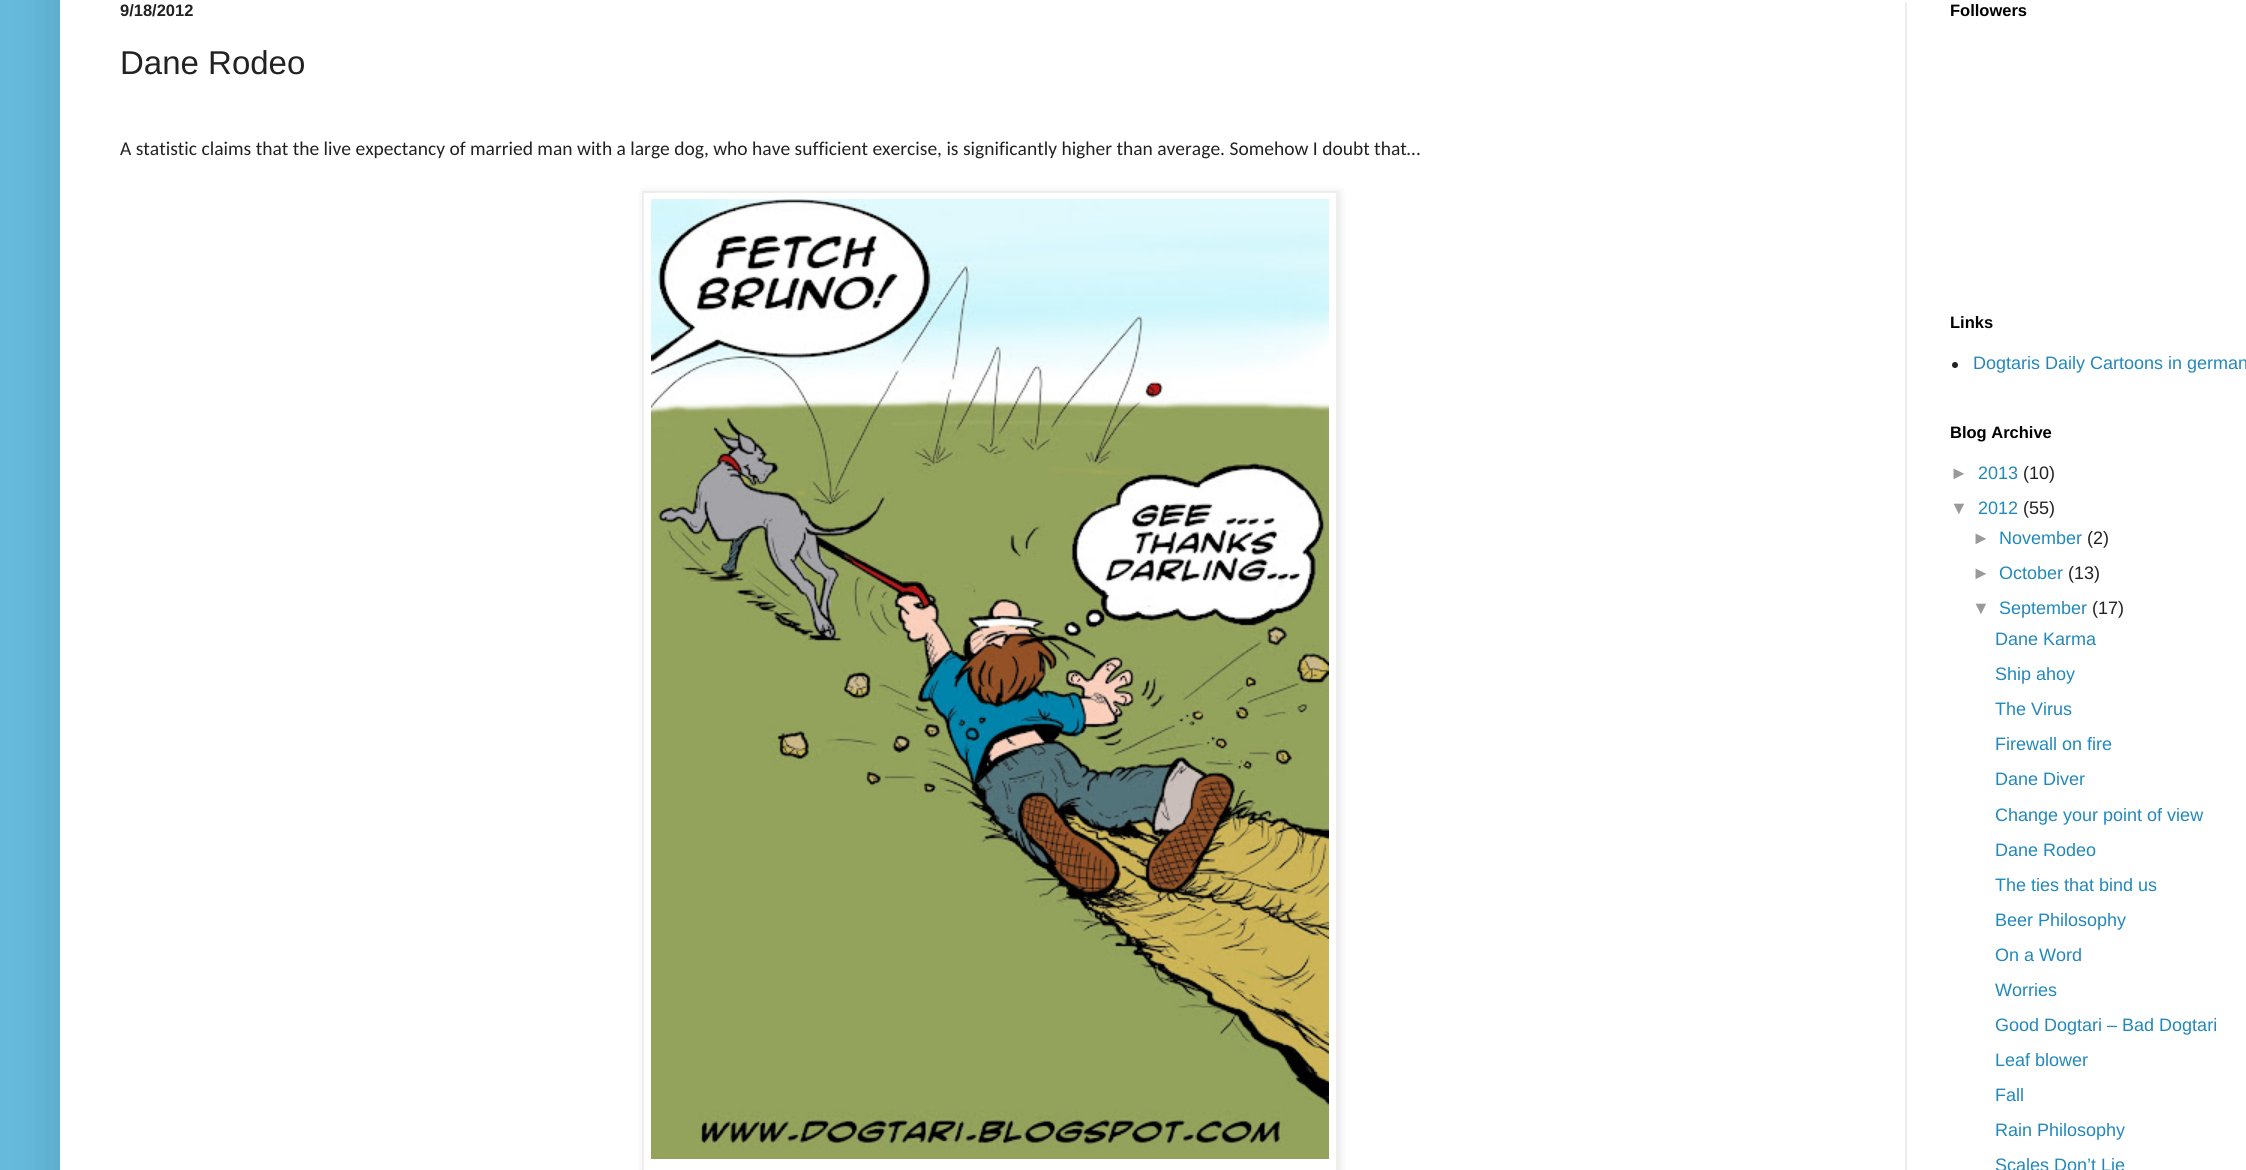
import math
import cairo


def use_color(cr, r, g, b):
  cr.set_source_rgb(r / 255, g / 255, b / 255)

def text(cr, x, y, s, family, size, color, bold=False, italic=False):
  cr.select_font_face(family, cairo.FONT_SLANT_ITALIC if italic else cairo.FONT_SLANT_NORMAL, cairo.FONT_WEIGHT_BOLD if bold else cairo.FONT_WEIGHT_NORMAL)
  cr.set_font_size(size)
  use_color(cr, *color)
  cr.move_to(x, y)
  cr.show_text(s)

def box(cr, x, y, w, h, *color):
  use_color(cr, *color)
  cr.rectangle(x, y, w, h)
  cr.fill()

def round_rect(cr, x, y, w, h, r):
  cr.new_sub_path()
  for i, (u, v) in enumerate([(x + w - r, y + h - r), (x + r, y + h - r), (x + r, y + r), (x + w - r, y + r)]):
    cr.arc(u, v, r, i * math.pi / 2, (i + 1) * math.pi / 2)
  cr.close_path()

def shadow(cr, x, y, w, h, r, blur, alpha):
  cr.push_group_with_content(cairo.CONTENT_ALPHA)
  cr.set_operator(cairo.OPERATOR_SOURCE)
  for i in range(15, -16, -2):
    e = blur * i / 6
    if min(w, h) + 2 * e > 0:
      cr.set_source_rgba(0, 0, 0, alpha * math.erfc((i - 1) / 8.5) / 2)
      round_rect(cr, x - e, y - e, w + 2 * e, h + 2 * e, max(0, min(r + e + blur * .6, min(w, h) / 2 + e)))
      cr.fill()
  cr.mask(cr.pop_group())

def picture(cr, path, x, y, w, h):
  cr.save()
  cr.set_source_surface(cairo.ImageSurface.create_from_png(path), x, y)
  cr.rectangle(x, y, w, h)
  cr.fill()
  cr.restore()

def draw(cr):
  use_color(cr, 102, 187, 221)
  cr.paint()
  use_color(cr, 0, 0, 0)
  shadow(cr, 60, -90, 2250, 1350, 0, 30, 0.15)
  box(cr, 60, 0, 2186, 1170, 255, 255, 255)
  box(cr, 1905, 2, 2, 1168, 238, 238, 238)
  cr.save()
  cr.set_fill_rule(cairo.FILL_RULE_EVEN_ODD)
  cr.new_path()
  cr.move_to(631, 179)
  cr.line_to(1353, 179)
  cr.line_to(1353, 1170)
  cr.line_to(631, 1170)
  cr.close_path()
  cr.move_to(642, 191)
  cr.line_to(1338, 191)
  cr.line_to(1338, 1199)
  cr.line_to(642, 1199)
  cr.close_path()
  cr.clip()
  use_color(cr, 0, 0, 0)
  shadow(cr, 644, 192, 696, 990, 0, 4, 0.1)
  cr.restore()
  cr.rectangle(643, 192, 694, 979)
  cr.stroke()
  picture(cr, "img_01.png", 651, 199, 678, 960)
  use_color(cr, 34, 34, 34)
  cr.arc(1955, 365, 3, 0, 2 * math.pi)
  cr.fill()
  text(cr, 120, 16, "9/18/2012", "Liberation Sans", 16.5, (34, 34, 34), bold=True)
  text(cr, 120, 74, "Dane Rodeo", "Liberation Sans", 33, (34, 34, 34))
  text(cr, 120, 155, "A statistic claims that the live expectancy of married man with a large dog, who have sufficient exercise, is significantly higher than average. Somehow I doubt that…", "Carlito", 19.5, (34, 34, 34))
  text(cr, 1950, 16, "Followers", "Liberation Sans", 16.5, (0, 0, 0), bold=True)
  text(cr, 1950, 328, "Links", "Liberation Sans", 16.5, (0, 0, 0), bold=True)
  text(cr, 1973, 369, "Dogtaris Daily Cartoons in german", "Liberation Sans", 18, (34, 136, 187))
  text(cr, 1950, 438, "Blog Archive", "Liberation Sans", 16.5, (0, 0, 0), bold=True)
  text(cr, 1950, 479, "►", "Liberation Sans", 18, (153, 153, 153))
  text(cr, 1978, 479, "2013", "Liberation Sans", 18, (34, 136, 187))
  text(cr, 2023, 479, "(10)", "Liberation Sans", 18, (34, 34, 34))
  text(cr, 1950, 514, "▼", "Liberation Sans", 18, (153, 153, 153))
  text(cr, 1978, 514, "2012", "Liberation Sans", 18, (34, 136, 187))
  text(cr, 2023, 514, "(55)", "Liberation Sans", 18, (34, 34, 34))
  text(cr, 1972, 544, "►", "Liberation Sans", 18, (153, 153, 153))
  text(cr, 1999, 544, "November", "Liberation Sans", 18, (34, 136, 187))
  text(cr, 2087, 544, "(2)", "Liberation Sans", 18, (34, 34, 34))
  text(cr, 1972, 579, "►", "Liberation Sans", 18, (153, 153, 153))
  text(cr, 1999, 579, "October", "Liberation Sans", 18, (34, 136, 187))
  text(cr, 2068, 579, "(13)", "Liberation Sans", 18, (34, 34, 34))
  text(cr, 1972, 614, "▼", "Liberation Sans", 18, (153, 153, 153))
  text(cr, 1999, 614, "September", "Liberation Sans", 18, (34, 136, 187))
  text(cr, 2092, 614, "(17)", "Liberation Sans", 18, (34, 34, 34))
  text(cr, 1995, 645, "Dane Karma", "Liberation Sans", 18, (34, 136, 187))
  text(cr, 1995, 680, "Ship ahoy", "Liberation Sans", 18, (34, 136, 187))
  text(cr, 1995, 715, "The Virus", "Liberation Sans", 18, (34, 136, 187))
  text(cr, 1995, 750, "Firewall on fire", "Liberation Sans", 18, (34, 136, 187))
  text(cr, 1995, 785, "Dane Diver", "Liberation Sans", 18, (34, 136, 187))
  text(cr, 1995, 821, "Change your point of view", "Liberation Sans", 18, (34, 136, 187))
  text(cr, 1995, 856, "Dane Rodeo", "Liberation Sans", 18, (34, 136, 187))
  text(cr, 1995, 891, "The ties that bind us", "Liberation Sans", 18, (34, 136, 187))
  text(cr, 1995, 926, "Beer Philosophy", "Liberation Sans", 18, (34, 136, 187))
  text(cr, 1995, 961, "On a Word", "Liberation Sans", 18, (34, 136, 187))
  text(cr, 1995, 996, "Worries", "Liberation Sans", 18, (34, 136, 187))
  text(cr, 1995, 1031, "Good Dogtari – Bad Dogtari", "Liberation Sans", 18, (34, 136, 187))
  text(cr, 1995, 1066, "Leaf blower", "Liberation Sans", 18, (34, 136, 187))
  text(cr, 1995, 1101, "Fall", "Liberation Sans", 18, (34, 136, 187))
  text(cr, 1995, 1136, "Rain Philosophy", "Liberation Sans", 18, (34, 136, 187))
  text(cr, 1995, 1171, "Scales Don’t Lie", "Liberation Sans", 18, (34, 136, 187))


surface = cairo.ImageSurface(cairo.FORMAT_RGB24, 2246, 1170)
cr = cairo.Context(surface)
options = cairo.FontOptions()
options.set_hint_metrics(cairo.HINT_METRICS_OFF)
options.set_hint_style(cairo.HINT_STYLE_NONE)
cr.set_font_options(options)
cr.set_miter_limit(4)
draw(cr)
surface.write_to_png("out.png")
